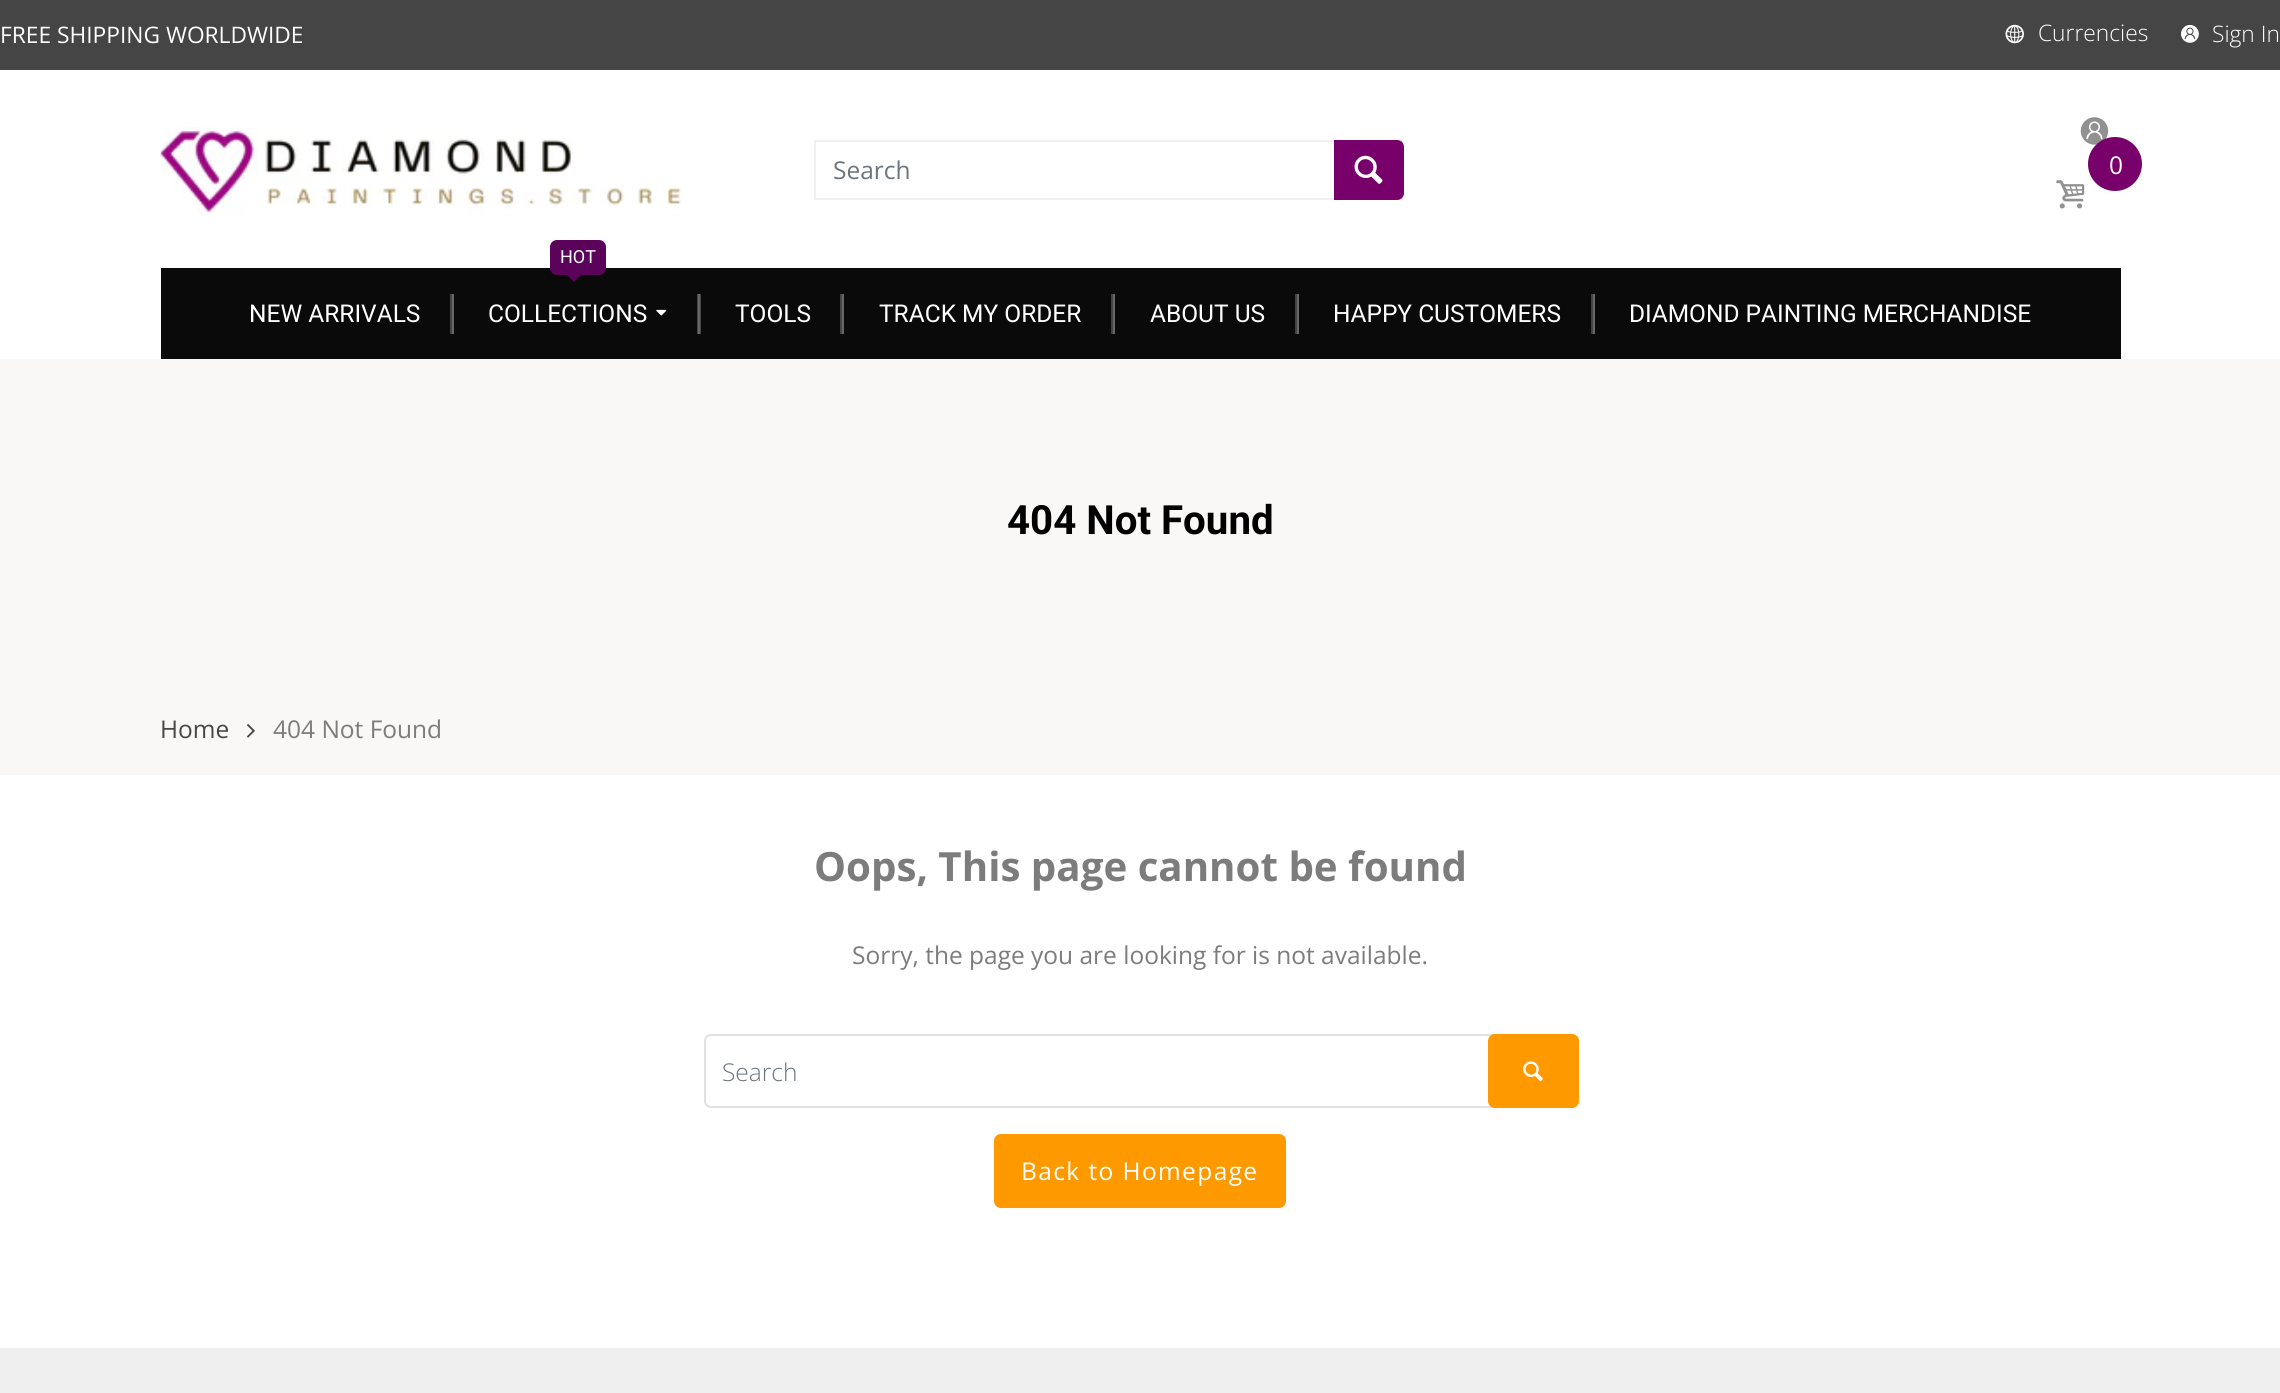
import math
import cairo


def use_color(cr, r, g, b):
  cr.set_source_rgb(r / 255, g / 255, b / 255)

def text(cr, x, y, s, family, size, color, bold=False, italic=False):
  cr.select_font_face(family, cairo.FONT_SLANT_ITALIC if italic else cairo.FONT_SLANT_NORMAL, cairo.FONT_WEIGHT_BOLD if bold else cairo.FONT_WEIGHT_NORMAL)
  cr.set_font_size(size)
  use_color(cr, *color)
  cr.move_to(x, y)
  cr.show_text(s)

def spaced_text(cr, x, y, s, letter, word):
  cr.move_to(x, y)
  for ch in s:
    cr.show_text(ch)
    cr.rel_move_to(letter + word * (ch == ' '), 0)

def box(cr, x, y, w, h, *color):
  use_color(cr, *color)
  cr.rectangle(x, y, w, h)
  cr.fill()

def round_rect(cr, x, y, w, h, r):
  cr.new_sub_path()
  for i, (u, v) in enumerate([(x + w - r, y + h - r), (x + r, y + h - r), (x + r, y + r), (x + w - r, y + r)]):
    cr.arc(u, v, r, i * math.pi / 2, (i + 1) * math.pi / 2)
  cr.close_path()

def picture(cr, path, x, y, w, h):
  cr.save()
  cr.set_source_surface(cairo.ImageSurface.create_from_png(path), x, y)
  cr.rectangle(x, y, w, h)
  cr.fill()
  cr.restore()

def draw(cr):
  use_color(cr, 255, 255, 255)
  cr.paint()
  box(cr, 0, 0, 2280, 70, 69, 69, 69)
  picture(cr, "img_01.png", 2005, 24, 19, 20)
  picture(cr, "img_02.png", 2181, 24, 18, 19)
  picture(cr, "img_03.png", 160, 127, 522, 88)
  cr.rectangle(815, 141, 586, 58)
  use_color(cr, 240, 240, 240)
  cr.stroke()
  use_color(cr, 120, 0, 107)
  cr.new_path()
  cr.move_to(1334, 140)
  cr.line_to(1397, 140)
  cr.curve_to(1401, 140, 1404, 143, 1404, 147)
  cr.line_to(1404, 193)
  cr.curve_to(1404, 197, 1401, 200, 1397, 200)
  cr.line_to(1334, 200)
  cr.close_path()
  cr.fill()
  picture(cr, "img_04.png", 1354, 155, 29, 29)
  picture(cr, "img_05.png", 2080, 117, 29, 28)
  cr.arc(2115, 164, 27, 0, 2 * math.pi)
  cr.fill()
  picture(cr, "img_06.png", 2056, 180, 29, 29)
  box(cr, 161, 268, 1960, 91, 10, 10, 10)
  box(cr, 450, 294, 2, 40, 69, 69, 69)
  box(cr, 452, 294, 2, 40, 103, 103, 103)
  use_color(cr, 91, 2, 90)
  round_rect(cr, 550, 240, 56, 35, 7)
  cr.fill()
  cr.new_path()
  cr.move_to(567, 275)
  cr.line_to(581, 275)
  cr.line_to(574, 282)
  cr.close_path()
  cr.fill()
  picture(cr, "img_07.png", 656, 309, 11, 7)
  box(cr, 697, 294, 4, 40, 69, 69, 69)
  box(cr, 698, 294, 2, 40, 103, 103, 103)
  box(cr, 840, 294, 2, 40, 69, 69, 69)
  box(cr, 842, 294, 2, 40, 103, 103, 103)
  box(cr, 1111, 294, 2, 40, 69, 69, 69)
  box(cr, 1113, 294, 2, 40, 103, 103, 103)
  box(cr, 1295, 294, 2, 40, 69, 69, 69)
  box(cr, 1297, 294, 2, 40, 103, 103, 103)
  box(cr, 1591, 294, 2, 40, 69, 69, 69)
  box(cr, 1593, 294, 2, 40, 103, 103, 103)
  box(cr, 0, 359, 2280, 416, 250, 247, 247)
  picture(cr, "img_08.png", 247, 724, 8, 14)
  round_rect(cr, 705, 1035, 873, 72, 6)
  use_color(cr, 225, 225, 225)
  cr.stroke()
  use_color(cr, 255, 153, 0)
  round_rect(cr, 1488, 1034, 91, 74, 7)
  cr.fill()
  picture(cr, "img_09.png", 1523, 1061, 20, 20)
  round_rect(cr, 994, 1134, 292, 74, 7)
  cr.fill()
  box(cr, 0, 1348, 2280, 45, 239, 239, 239)
  text(cr, 0, 43, "FREE SHIPPING WORLDWIDE", "Open Sans", 22.75, (255, 255, 255))
  text(cr, 2038, 41, "Currencies", "Open Sans Light", 22.75, (255, 255, 255))
  text(cr, 2212, 42, "Sign In", "Open Sans Light", 22.75, (255, 255, 255))
  text(cr, 833, 179, "Search", "Open Sans", 24.5, (108, 117, 125))
  text(cr, 2109, 174, "0", "Open Sans", 24.5, (255, 255, 255))
  text(cr, 249, 322, "NEW ARRIVALS", "Roboto", 24.5, (255, 255, 255))
  text(cr, 560, 263, "HOT", "Roboto", 18, (255, 255, 255))
  text(cr, 488, 322, "COLLECTIONS", "Roboto", 24.5, (255, 255, 255))
  text(cr, 735, 322, "TOOLS", "Roboto", 24.5, (255, 255, 255))
  text(cr, 879, 322, "TRACK MY ORDER", "Roboto", 24.5, (255, 255, 255))
  text(cr, 1150, 322, "ABOUT US", "Roboto", 24.5, (255, 255, 255))
  text(cr, 1333, 322, "HAPPY CUSTOMERS", "Roboto", 24.5, (255, 255, 255))
  text(cr, 1629, 322, "DIAMOND PAINTING MERCHANDISE", "Roboto", 24.5, (255, 255, 255))
  text(cr, 1007, 534, "404 Not Found", "Roboto", 40.25, (0, 0, 0), bold=True)
  text(cr, 160, 738, "Home", "Open Sans", 24.5, (72, 71, 71))
  text(cr, 273, 738, "404 Not Found", "Open Sans", 24.5, (124, 124, 124))
  text(cr, 814, 881, "Oops, This page cannot be found", "Open Sans", 40.25, (124, 124, 124), bold=True)
  text(cr, 852, 964, "Sorry, the page you are looking for is not available.", "Open Sans", 24.5, (124, 124, 124))
  text(cr, 722, 1081, "Search", "Open Sans Light", 24.5, (108, 117, 125))
  cr.select_font_face("Open Sans")
  use_color(cr, 255, 255, 255)
  spaced_text(cr, 1021, 1180, "Back to Homepage", 1.4, 0)


surface = cairo.ImageSurface(cairo.FORMAT_RGB24, 2280, 1393)
cr = cairo.Context(surface)
options = cairo.FontOptions()
options.set_hint_metrics(cairo.HINT_METRICS_OFF)
options.set_hint_style(cairo.HINT_STYLE_NONE)
cr.set_font_options(options)
cr.set_miter_limit(4)
draw(cr)
surface.write_to_png("out.png")
